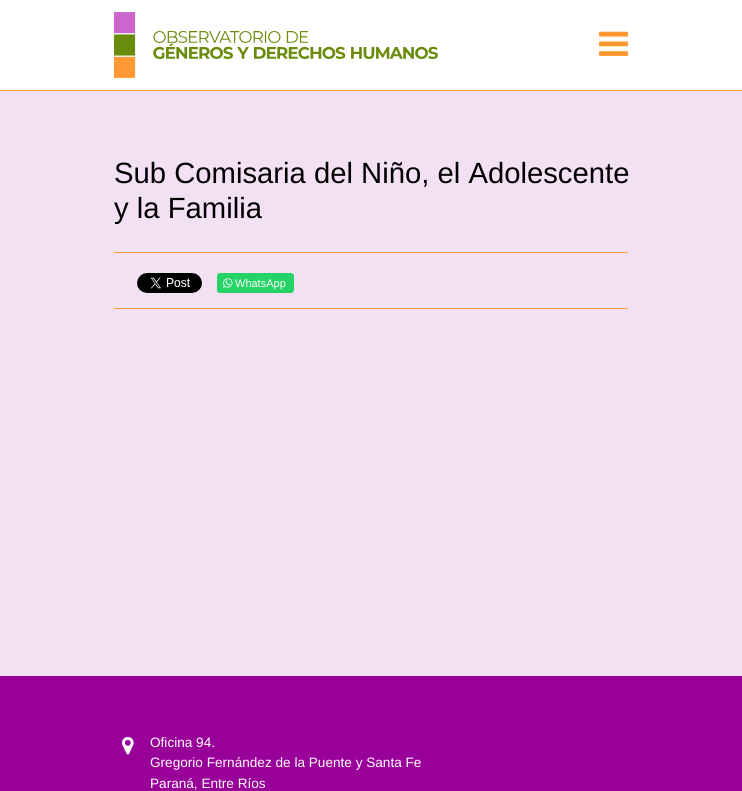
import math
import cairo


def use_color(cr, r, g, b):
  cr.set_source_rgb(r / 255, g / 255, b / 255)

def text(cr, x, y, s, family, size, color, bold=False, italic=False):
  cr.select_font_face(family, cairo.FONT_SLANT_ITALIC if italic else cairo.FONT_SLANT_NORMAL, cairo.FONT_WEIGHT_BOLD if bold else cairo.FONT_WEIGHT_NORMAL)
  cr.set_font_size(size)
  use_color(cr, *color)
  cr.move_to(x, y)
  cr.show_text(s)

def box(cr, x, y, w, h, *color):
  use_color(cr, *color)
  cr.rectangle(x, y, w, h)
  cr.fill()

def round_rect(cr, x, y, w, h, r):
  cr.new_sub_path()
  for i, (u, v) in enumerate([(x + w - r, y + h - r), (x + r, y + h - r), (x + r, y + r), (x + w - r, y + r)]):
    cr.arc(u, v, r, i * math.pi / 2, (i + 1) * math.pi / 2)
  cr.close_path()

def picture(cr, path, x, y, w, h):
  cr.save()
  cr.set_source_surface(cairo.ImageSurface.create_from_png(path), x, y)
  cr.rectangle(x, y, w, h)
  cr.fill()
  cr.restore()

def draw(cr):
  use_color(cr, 242, 225, 242)
  cr.paint()
  box(cr, 0, 0, 742, 90, 255, 255, 255)
  box(cr, 0, 90, 742, 1, 255, 153, 51)
  picture(cr, "img_01.png", 114, 12, 324, 66)
  picture(cr, "img_02.png", 599, 31, 30, 25)
  box(cr, 114, 252, 514, 1, 255, 153, 51)
  box(cr, 114, 308, 514, 1, 255, 153, 51)
  picture(cr, "img_03.png", 137, 273, 65, 20)
  use_color(cr, 37, 211, 102)
  round_rect(cr, 217, 273, 77, 20, 3)
  cr.fill()
  picture(cr, "img_04.png", 223, 278, 10, 10)
  box(cr, 0, 676, 742, 115, 153, 0, 153)
  picture(cr, "img_05.png", 122, 737, 12, 18)
  text(cr, 114, 183, "Sub Comisaria del Niño, el Adolescente", "Liberation Sans", 29.25, (0, 0, 0))
  text(cr, 114, 218, "y la Familia", "Liberation Sans", 29.25, (0, 0, 0))
  text(cr, 235, 287, "WhatsApp", "Liberation Sans", 11, (255, 255, 255))
  text(cr, 150, 747, "Oficina 94.", "Liberation Sans", 13.6, (255, 255, 255))
  text(cr, 150, 767, "Gregorio Fernández de la Puente y Santa Fe", "Liberation Sans", 13.6, (255, 255, 255))
  text(cr, 150, 788, "Paraná, Entre Ríos", "Liberation Sans", 13.6, (255, 255, 255))


surface = cairo.ImageSurface(cairo.FORMAT_RGB24, 742, 791)
cr = cairo.Context(surface)
options = cairo.FontOptions()
options.set_hint_metrics(cairo.HINT_METRICS_OFF)
options.set_hint_style(cairo.HINT_STYLE_NONE)
cr.set_font_options(options)
cr.set_miter_limit(4)
draw(cr)
surface.write_to_png("out.png")
